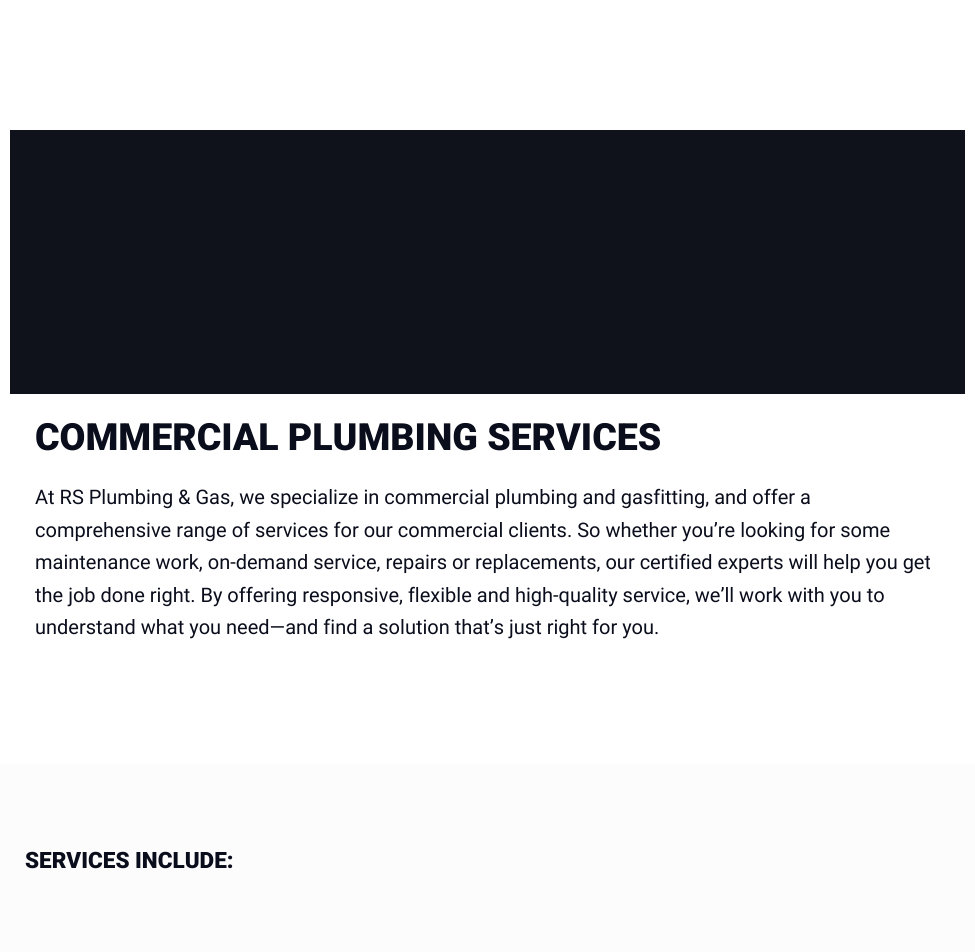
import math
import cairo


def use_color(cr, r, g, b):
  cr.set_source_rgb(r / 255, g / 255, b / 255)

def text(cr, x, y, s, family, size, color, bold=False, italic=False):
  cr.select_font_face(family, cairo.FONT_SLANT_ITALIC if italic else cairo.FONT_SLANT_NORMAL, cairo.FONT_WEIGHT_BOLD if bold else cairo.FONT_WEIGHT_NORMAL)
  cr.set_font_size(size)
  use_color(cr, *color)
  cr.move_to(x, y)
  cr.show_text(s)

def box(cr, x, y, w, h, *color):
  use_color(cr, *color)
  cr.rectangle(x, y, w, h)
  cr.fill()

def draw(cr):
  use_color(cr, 255, 255, 255)
  cr.paint()
  box(cr, 10, 130, 955, 264, 15, 18, 26)
  box(cr, 0, 764, 975, 188, 252, 252, 252)
  text(cr, 35, 450, "COMMERCIAL PLUMBING SERVICES", "Roboto Black", 37.5, (10, 13, 27))
  text(cr, 35, 504, "At RS Plumbing & Gas, we specialize in commercial plumbing and gasfitting, and offer a", "Roboto", 20, (10, 13, 27))
  text(cr, 35, 537, "comprehensive range of services for our commercial clients. So whether you’re looking for some", "Roboto", 20, (10, 13, 27))
  text(cr, 35, 569, "maintenance work, on-demand service, repairs or replacements, our certified experts will help you get", "Roboto", 20, (10, 13, 27))
  text(cr, 35, 602, "the job done right. By offering responsive, flexible and high-quality service, we’ll work with you to", "Roboto", 20, (10, 13, 27))
  text(cr, 35, 634, "understand what you need—and find a solution that’s just right for you.", "Roboto", 20, (10, 13, 27))
  text(cr, 25, 868, "SERVICES INCLUDE:", "Roboto Black", 22.5, (10, 13, 27))


surface = cairo.ImageSurface(cairo.FORMAT_RGB24, 975, 952)
cr = cairo.Context(surface)
options = cairo.FontOptions()
options.set_hint_metrics(cairo.HINT_METRICS_OFF)
options.set_hint_style(cairo.HINT_STYLE_NONE)
cr.set_font_options(options)
cr.set_miter_limit(4)
draw(cr)
surface.write_to_png("out.png")
